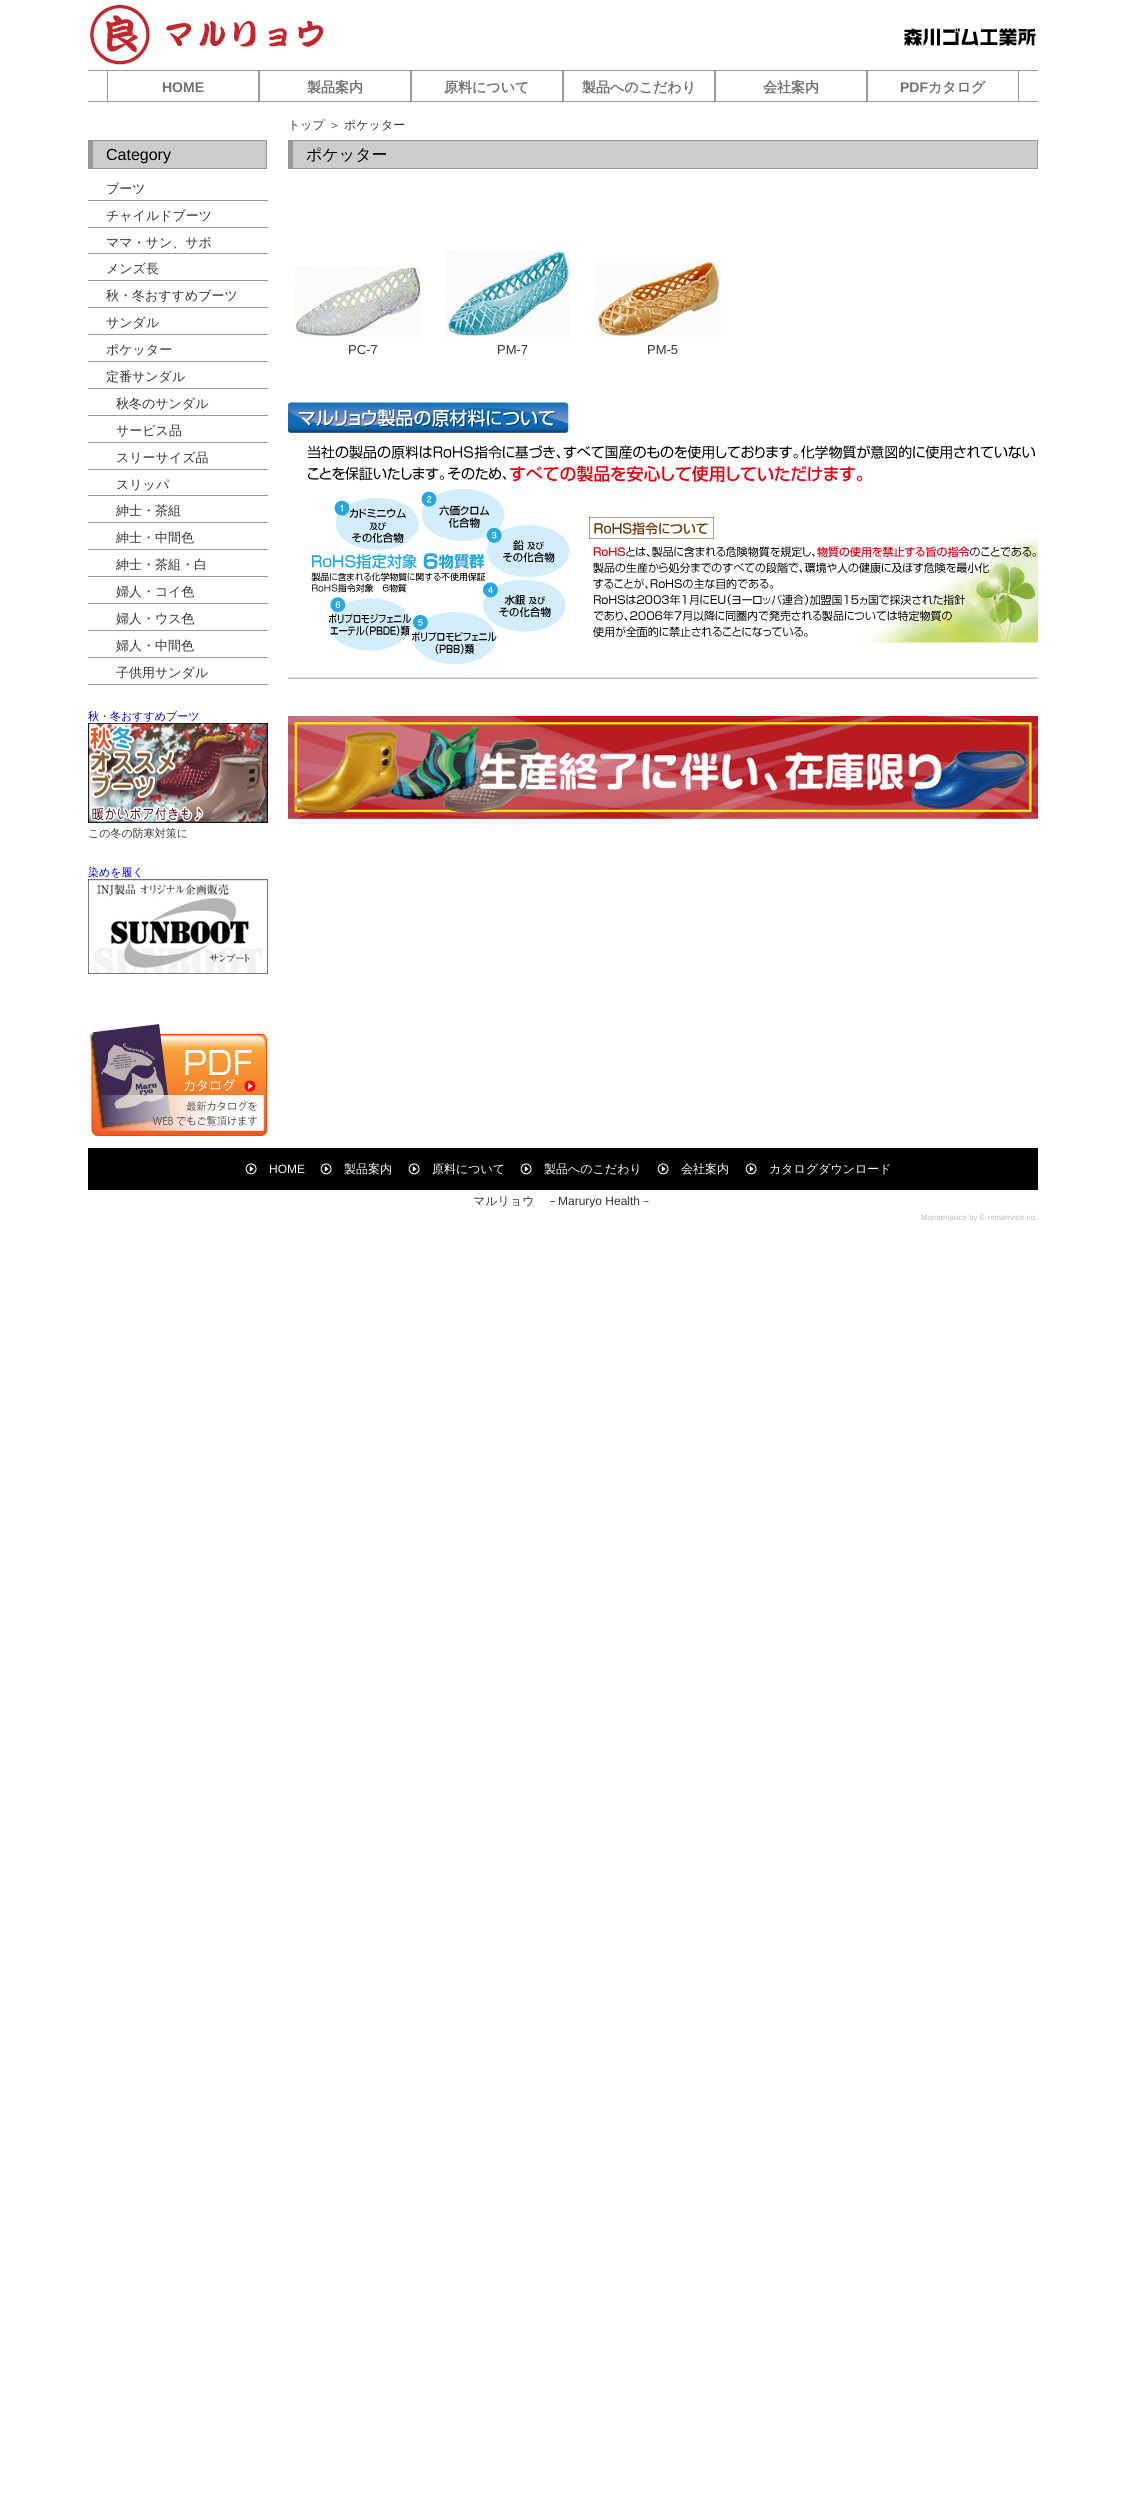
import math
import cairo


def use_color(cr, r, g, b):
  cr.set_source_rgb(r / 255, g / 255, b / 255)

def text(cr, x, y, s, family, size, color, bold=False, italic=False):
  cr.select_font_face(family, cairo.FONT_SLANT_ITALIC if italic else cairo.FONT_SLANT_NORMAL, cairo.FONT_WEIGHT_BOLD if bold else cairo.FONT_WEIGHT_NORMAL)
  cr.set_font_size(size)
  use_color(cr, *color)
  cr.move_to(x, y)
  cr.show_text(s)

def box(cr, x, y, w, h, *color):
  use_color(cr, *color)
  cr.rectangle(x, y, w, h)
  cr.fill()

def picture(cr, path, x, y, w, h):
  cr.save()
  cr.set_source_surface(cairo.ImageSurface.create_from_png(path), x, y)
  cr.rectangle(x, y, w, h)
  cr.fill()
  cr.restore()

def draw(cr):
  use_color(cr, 255, 255, 255)
  cr.paint()
  picture(cr, "img_01.png", 90, 5, 946, 60)
  box(cr, 88, 70, 950, 1, 153, 153, 153)
  box(cr, 88, 101, 950, 1, 153, 153, 153)
  box(cr, 258, 71, 2, 30, 153, 153, 153)
  box(cr, 107, 71, 1, 30, 153, 153, 153)
  box(cr, 410, 71, 2, 30, 153, 153, 153)
  box(cr, 562, 71, 2, 30, 153, 153, 153)
  box(cr, 714, 71, 2, 30, 153, 153, 153)
  box(cr, 866, 71, 2, 30, 153, 153, 153)
  box(cr, 1018, 71, 1, 30, 153, 153, 153)
  box(cr, 93, 141, 173, 27, 204, 204, 204)
  box(cr, 88, 140, 179, 1, 153, 153, 153)
  box(cr, 266, 140, 1, 29, 153, 153, 153)
  box(cr, 88, 168, 179, 1, 153, 153, 153)
  box(cr, 88, 140, 5, 29, 153, 153, 153)
  box(cr, 88, 200, 180, 1, 153, 153, 153)
  box(cr, 88, 227, 180, 1, 153, 153, 153)
  box(cr, 88, 253, 180, 1, 153, 153, 153)
  box(cr, 88, 280, 180, 1, 153, 153, 153)
  box(cr, 88, 307, 180, 1, 153, 153, 153)
  box(cr, 88, 334, 180, 1, 153, 153, 153)
  box(cr, 88, 361, 180, 1, 153, 153, 153)
  box(cr, 88, 388, 180, 1, 153, 153, 153)
  box(cr, 88, 415, 180, 1, 153, 153, 153)
  box(cr, 88, 442, 180, 1, 153, 153, 153)
  box(cr, 88, 469, 180, 1, 153, 153, 153)
  box(cr, 88, 495, 180, 1, 153, 153, 153)
  box(cr, 88, 522, 180, 1, 153, 153, 153)
  box(cr, 88, 549, 180, 1, 153, 153, 153)
  box(cr, 88, 576, 180, 1, 153, 153, 153)
  box(cr, 88, 603, 180, 1, 153, 153, 153)
  box(cr, 88, 630, 180, 1, 153, 153, 153)
  box(cr, 88, 657, 180, 1, 153, 153, 153)
  box(cr, 88, 684, 180, 1, 153, 153, 153)
  picture(cr, "img_02.png", 88, 723, 180, 100)
  picture(cr, "img_03.png", 88, 879, 180, 95)
  picture(cr, "img_04.png", 89, 1024, 179, 112)
  box(cr, 293, 141, 744, 27, 204, 204, 204)
  box(cr, 288, 140, 750, 1, 153, 153, 153)
  box(cr, 1037, 140, 1, 29, 153, 153, 153)
  box(cr, 288, 168, 750, 1, 153, 153, 153)
  box(cr, 288, 140, 5, 29, 153, 153, 153)
  picture(cr, "img_05.png", 295, 266, 126, 71)
  picture(cr, "img_06.png", 445, 250, 126, 87)
  picture(cr, "img_07.png", 595, 260, 126, 77)
  picture(cr, "img_08.png", 288, 402, 750, 277)
  picture(cr, "img_09.png", 288, 716, 750, 103)
  box(cr, 88, 1148, 950, 42, 0, 0, 0)
  picture(cr, "img_10.png", 245, 1163, 13, 12)
  picture(cr, "img_10.png", 320, 1163, 13, 12)
  picture(cr, "img_10.png", 408, 1163, 13, 12)
  picture(cr, "img_10.png", 520, 1163, 13, 12)
  picture(cr, "img_10.png", 657, 1163, 13, 12)
  picture(cr, "img_10.png", 745, 1163, 13, 12)
  text(cr, 162, 92, "HOME", "Liberation Sans", 14, (114, 113, 113), bold=True)
  text(cr, 307, 92, "製品案内", "WenQuanYi Zen Hei", 14, (114, 113, 113), bold=True)
  text(cr, 444, 92, "原料について", "WenQuanYi Zen Hei", 14, (114, 113, 113), bold=True)
  text(cr, 582, 92, "製品へのこだわり", "WenQuanYi Zen Hei", 14, (114, 113, 113), bold=True)
  text(cr, 763, 92, "会社案内", "WenQuanYi Zen Hei", 14, (114, 113, 113), bold=True)
  text(cr, 900, 92, "PDF", "Liberation Sans", 14, (114, 113, 113), bold=True)
  text(cr, 928, 92, "カタログ", "WenQuanYi Zen Hei", 14, (114, 113, 113), bold=True)
  text(cr, 106, 160, "Category", "Liberation Sans", 16, (0, 0, 0))
  text(cr, 106, 193, "ブーツ", "WenQuanYi Zen Hei Medium", 13, (51, 51, 51))
  text(cr, 106, 220, "チャイルドブーツ", "WenQuanYi Zen Hei Medium", 13, (51, 51, 51))
  text(cr, 106, 247, "ママ・サン、サボ", "WenQuanYi Zen Hei Medium", 13, (51, 51, 51))
  text(cr, 106, 273, "メンズ長", "WenQuanYi Zen Hei Medium", 13, (51, 51, 51))
  text(cr, 106, 300, "秋・冬おすすめブーツ", "WenQuanYi Zen Hei Medium", 13, (51, 51, 51))
  text(cr, 106, 327, "サンダル", "WenQuanYi Zen Hei Medium", 13, (51, 51, 51))
  text(cr, 106, 354, "ポケッター", "WenQuanYi Zen Hei Medium", 13, (51, 51, 51))
  text(cr, 106, 381, "定番サンダル", "WenQuanYi Zen Hei Medium", 13, (51, 51, 51))
  text(cr, 116, 408, "秋冬のサンダル", "WenQuanYi Zen Hei Medium", 13, (51, 51, 51))
  text(cr, 116, 435, "サービス品", "WenQuanYi Zen Hei Medium", 13, (51, 51, 51))
  text(cr, 116, 462, "スリーサイズ品", "WenQuanYi Zen Hei Medium", 13, (51, 51, 51))
  text(cr, 116, 489, "スリッパ", "WenQuanYi Zen Hei Medium", 13, (51, 51, 51))
  text(cr, 116, 515, "紳士・茶組", "WenQuanYi Zen Hei Medium", 13, (51, 51, 51))
  text(cr, 116, 542, "紳士・中間色", "WenQuanYi Zen Hei Medium", 13, (51, 51, 51))
  text(cr, 116, 569, "紳士・茶組・白", "WenQuanYi Zen Hei Medium", 13, (51, 51, 51))
  text(cr, 116, 596, "婦人・コイ色", "WenQuanYi Zen Hei Medium", 13, (51, 51, 51))
  text(cr, 116, 623, "婦人・ウス色", "WenQuanYi Zen Hei Medium", 13, (51, 51, 51))
  text(cr, 116, 650, "婦人・中間色", "WenQuanYi Zen Hei Medium", 13, (51, 51, 51))
  text(cr, 116, 677, "子供用サンダル", "WenQuanYi Zen Hei Medium", 13, (51, 51, 51))
  text(cr, 88, 720, "秋・冬おすすめブーツ", "WenQuanYi Zen Hei Medium", 11, (0, 0, 255))
  text(cr, 88, 837, "この冬の防寒対策に", "WenQuanYi Zen Hei Medium", 11, (51, 51, 51))
  text(cr, 88, 876, "染めを履く", "WenQuanYi Zen Hei Medium", 11, (0, 0, 255))
  text(cr, 288, 129, "トップ ＞ ポケッター", "WenQuanYi Zen Hei Medium", 12, (51, 51, 51))
  text(cr, 306, 160, "ポケッター", "WenQuanYi Zen Hei Medium", 16, (0, 0, 0))
  text(cr, 348, 354, "PC-7", "Liberation Sans", 13, (51, 51, 51))
  text(cr, 497, 354, "PM-7", "Liberation Sans", 13, (51, 51, 51))
  text(cr, 647, 354, "PM-5", "Liberation Sans", 13, (51, 51, 51))
  text(cr, 269, 1173, "HOME", "Liberation Sans", 12, (255, 255, 255))
  text(cr, 344, 1173, "製品案内", "WenQuanYi Zen Hei Medium", 12, (255, 255, 255))
  text(cr, 432, 1173, "原料について", "WenQuanYi Zen Hei Medium", 12, (255, 255, 255))
  text(cr, 544, 1173, "製品へのこだわり", "WenQuanYi Zen Hei Medium", 12, (255, 255, 255))
  text(cr, 681, 1173, "会社案内", "WenQuanYi Zen Hei Medium", 12, (255, 255, 255))
  text(cr, 769, 1173, "カタログダウンロード", "WenQuanYi Zen Hei Medium", 12, (255, 255, 255))
  text(cr, 473, 1205, "マルリョウ　－", "WenQuanYi Zen Hei Medium", 12, (51, 51, 51))
  text(cr, 558, 1205, "Maruryo Health", "Liberation Sans", 12, (51, 51, 51))
  text(cr, 640, 1205, "－", "WenQuanYi Zen Hei Medium", 12, (51, 51, 51))
  text(cr, 921, 1220, "Maintenance by E-netservice co.", "Liberation Sans", 8, (187, 187, 187))


surface = cairo.ImageSurface(cairo.FORMAT_RGB24, 1125, 2513)
cr = cairo.Context(surface)
options = cairo.FontOptions()
options.set_hint_metrics(cairo.HINT_METRICS_OFF)
options.set_hint_style(cairo.HINT_STYLE_NONE)
cr.set_font_options(options)
cr.set_miter_limit(4)
draw(cr)
surface.write_to_png("out.png")
